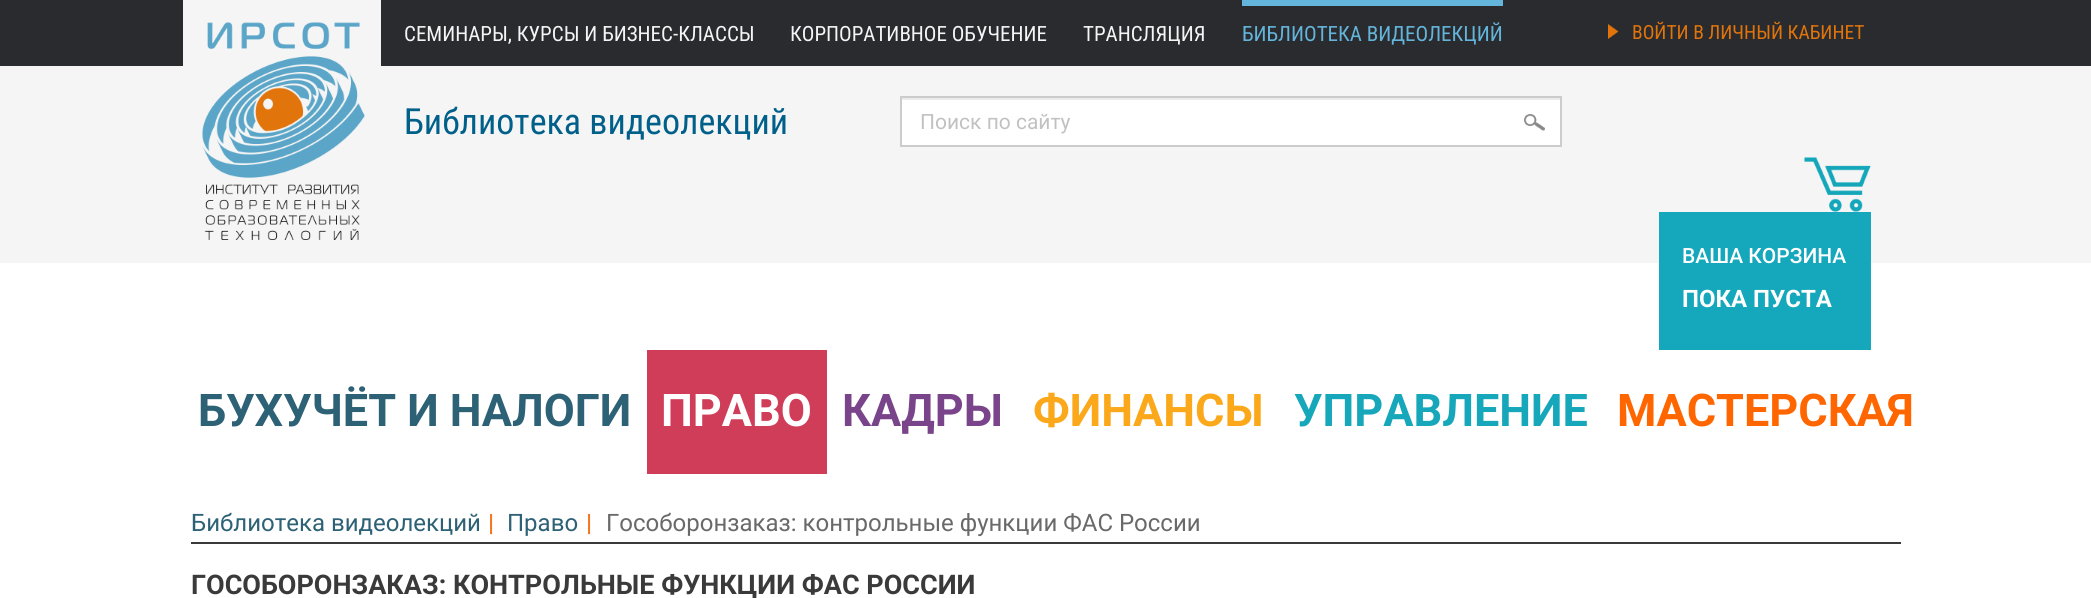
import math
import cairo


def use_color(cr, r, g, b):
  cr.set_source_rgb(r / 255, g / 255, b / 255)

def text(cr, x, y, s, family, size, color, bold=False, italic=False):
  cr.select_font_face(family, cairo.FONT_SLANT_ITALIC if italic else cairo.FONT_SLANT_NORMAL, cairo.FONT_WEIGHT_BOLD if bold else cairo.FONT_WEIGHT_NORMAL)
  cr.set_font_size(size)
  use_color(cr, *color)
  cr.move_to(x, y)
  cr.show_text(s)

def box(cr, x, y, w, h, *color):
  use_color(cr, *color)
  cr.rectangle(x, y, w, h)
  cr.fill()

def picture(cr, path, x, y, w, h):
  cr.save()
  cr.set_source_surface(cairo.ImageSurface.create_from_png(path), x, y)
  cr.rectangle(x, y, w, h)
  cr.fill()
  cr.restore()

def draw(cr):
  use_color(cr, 255, 255, 255)
  cr.paint()
  box(cr, 0, 66, 2091, 197, 245, 245, 245)
  box(cr, 0, 0, 2091, 66, 41, 43, 47)
  picture(cr, "img_01.png", 183, 0, 198, 240)
  box(cr, 1242, 0, 261, 6, 100, 181, 219)
  picture(cr, "img_02.png", 1608, 24, 11, 15)
  box(cr, 902, 100, 658, 45, 255, 255, 255)
  box(cr, 902, 98, 658, 2, 236, 236, 236)
  cr.rectangle(901, 97, 660, 49)
  use_color(cr, 204, 204, 204)
  cr.stroke()
  picture(cr, "img_03.png", 1524, 114, 21, 17)
  picture(cr, "img_04.png", 1804, 157, 67, 55)
  box(cr, 1659, 212, 212, 138, 21, 167, 187)
  box(cr, 647, 350, 180, 124, 208, 61, 88)
  box(cr, 191, 542, 1710, 2, 58, 58, 58)
  text(cr, 404, 41, "СЕМИНАРЫ, КУРСЫ И БИЗНЕС-КЛАССЫ", "Roboto Condensed", 21, (245, 245, 245))
  text(cr, 790, 41, "КОРПОРАТИВНОЕ ОБУЧЕНИЕ", "Roboto Condensed", 21, (245, 245, 245))
  text(cr, 1083, 41, "ТРАНСЛЯЦИЯ", "Roboto Condensed", 21, (245, 245, 245))
  text(cr, 1242, 41, "БИБЛИОТЕКА ВИДЕОЛЕКЦИЙ", "Roboto Condensed", 21, (100, 181, 219))
  text(cr, 1632, 39, "ВОЙТИ В ЛИЧНЫЙ КАБИНЕТ", "Roboto Condensed", 19.5, (225, 116, 11))
  text(cr, 404, 134, "Библиотека видеолекций", "Roboto Condensed", 36, (1, 96, 138))
  text(cr, 920, 129, "Поиск по сайту", "Roboto", 21, (193, 193, 193))
  text(cr, 1682, 263, "ВАША КОРЗИНА", "Roboto Medium", 21, (255, 255, 255))
  text(cr, 1682, 307, "ПОКА ПУСТА", "Roboto", 24, (255, 255, 255), bold=True)
  text(cr, 198, 426, "БУХУЧЁТ И НАЛОГИ", "Roboto", 45, (45, 97, 117), bold=True)
  text(cr, 661, 426, "ПРАВО", "Roboto", 45, (255, 255, 255), bold=True)
  text(cr, 842, 426, "КАДРЫ", "Roboto", 45, (122, 68, 139), bold=True)
  text(cr, 1033, 426, "ФИНАНСЫ", "Roboto", 45, (251, 169, 27), bold=True)
  text(cr, 1294, 426, "УПРАВЛЕНИЕ", "Roboto", 45, (23, 167, 187), bold=True)
  text(cr, 1617, 426, "МАСТЕРСКАЯ", "Roboto", 45, (255, 102, 0), bold=True)
  text(cr, 191, 531, "Библиотека видеолекций", "Roboto", 24, (45, 97, 117))
  text(cr, 488, 531, "|", "Roboto", 24, (244, 117, 33), bold=True)
  text(cr, 507, 531, "Право", "Roboto", 24, (45, 97, 117))
  text(cr, 586, 531, "|", "Roboto", 24, (244, 117, 33), bold=True)
  text(cr, 606, 531, "Гособоронзаказ: контрольные функции ФАС России", "Roboto", 24, (105, 105, 105))
  text(cr, 191, 594, "ГОСОБОРОНЗАКАЗ: КОНТРОЛЬНЫЕ ФУНКЦИИ ФАС РОССИИ", "Roboto", 27, (58, 58, 58), bold=True)


surface = cairo.ImageSurface(cairo.FORMAT_RGB24, 2091, 598)
cr = cairo.Context(surface)
options = cairo.FontOptions()
options.set_hint_metrics(cairo.HINT_METRICS_OFF)
options.set_hint_style(cairo.HINT_STYLE_NONE)
cr.set_font_options(options)
cr.set_miter_limit(4)
draw(cr)
surface.write_to_png("out.png")
